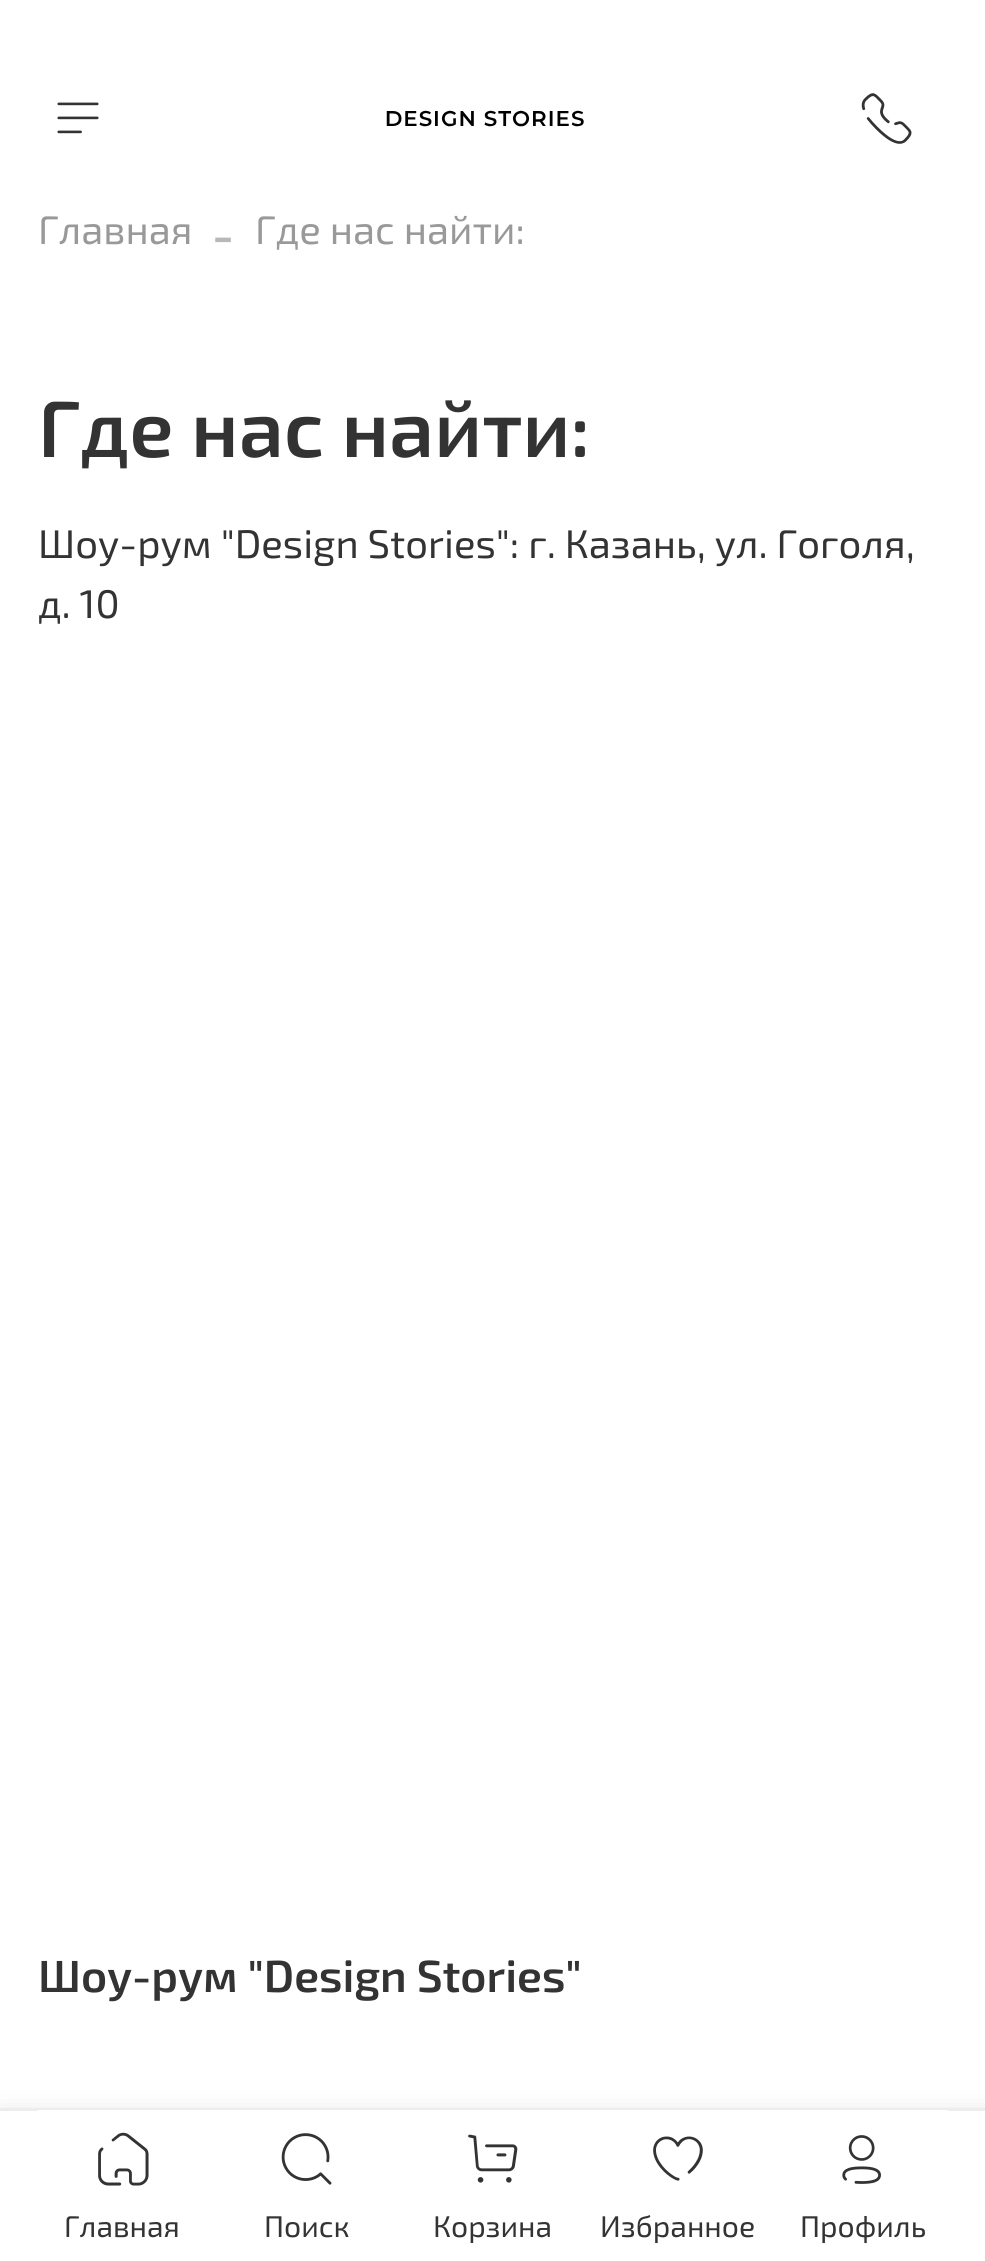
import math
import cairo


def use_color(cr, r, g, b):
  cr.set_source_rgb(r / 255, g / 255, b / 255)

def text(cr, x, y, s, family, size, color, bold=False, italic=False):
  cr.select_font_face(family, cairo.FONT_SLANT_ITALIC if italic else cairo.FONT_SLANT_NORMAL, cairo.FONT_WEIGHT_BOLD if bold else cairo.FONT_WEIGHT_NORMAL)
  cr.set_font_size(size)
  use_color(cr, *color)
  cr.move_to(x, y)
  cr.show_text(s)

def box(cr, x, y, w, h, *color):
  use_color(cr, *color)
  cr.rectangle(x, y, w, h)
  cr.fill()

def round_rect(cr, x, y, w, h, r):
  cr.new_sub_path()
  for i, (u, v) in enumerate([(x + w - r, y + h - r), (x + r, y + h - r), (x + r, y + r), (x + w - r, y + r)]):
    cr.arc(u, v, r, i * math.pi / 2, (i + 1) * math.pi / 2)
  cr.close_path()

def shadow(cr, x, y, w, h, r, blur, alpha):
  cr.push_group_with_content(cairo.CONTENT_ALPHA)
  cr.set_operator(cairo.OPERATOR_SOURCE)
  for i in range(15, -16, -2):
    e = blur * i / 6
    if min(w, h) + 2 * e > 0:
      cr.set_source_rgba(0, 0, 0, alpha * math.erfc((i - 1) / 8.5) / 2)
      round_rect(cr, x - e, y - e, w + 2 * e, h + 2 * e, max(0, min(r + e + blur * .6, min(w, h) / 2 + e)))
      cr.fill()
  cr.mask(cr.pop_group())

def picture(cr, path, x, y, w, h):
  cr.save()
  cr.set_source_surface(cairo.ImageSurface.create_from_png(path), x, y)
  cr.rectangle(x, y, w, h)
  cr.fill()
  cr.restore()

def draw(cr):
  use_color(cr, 255, 255, 255)
  cr.paint()
  picture(cr, "img_01.png", 57, 102, 42, 32)
  picture(cr, "img_02.png", 386, 110, 198, 17)
  picture(cr, "img_03.png", 861, 93, 51, 51)
  use_color(cr, 0, 0, 0)
  shadow(cr, 0, 2113, 985, 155, 0, 12.5, 0.12)
  box(cr, 0, 2111, 985, 150, 255, 255, 255)
  box(cr, 0, 2108, 985, 3, 237, 237, 237)
  box(cr, 38, 2110, 910, 1, 255, 255, 255)
  picture(cr, "img_04.png", 98, 2132, 51, 54)
  picture(cr, "img_05.png", 281, 2133, 51, 52)
  picture(cr, "img_06.png", 468, 2134, 50, 49)
  picture(cr, "img_07.png", 653, 2136, 50, 45)
  picture(cr, "img_08.png", 842, 2135, 39, 49)
  text(cr, 38, 244, "Главная", "Exo 2", 40, (153, 153, 153))
  text(cr, 213, 254, "-", "Liberation Serif", 60, (184, 184, 184))
  text(cr, 255, 244, "Где нас найти:", "Exo 2", 40, (153, 153, 153))
  text(cr, 38, 457, "Где нас найти:", "Exo 2 SemiBold", 80, (51, 51, 51))
  text(cr, 38, 558, "Шоу-рум \"Design Stories\": г. Казань, ул. Гоголя,", "Exo 2", 40, (51, 51, 51))
  text(cr, 38, 618, "д. 10", "Exo 2", 40, (51, 51, 51))
  text(cr, 38, 1992, "Шоу-рум \"Design Stories\"", "Exo 2 SemiBold", 45, (51, 51, 51))
  text(cr, 64, 2237, "Главная", "Exo 2", 30, (51, 51, 51))
  text(cr, 264, 2237, "Поиск", "Exo 2", 30, (51, 51, 51))
  text(cr, 433, 2237, "Корзина", "Exo 2", 30, (51, 51, 51))
  text(cr, 600, 2237, "Избранное", "Exo 2", 30, (51, 51, 51))
  text(cr, 800, 2237, "Профиль", "Exo 2", 30, (51, 51, 51))


surface = cairo.ImageSurface(cairo.FORMAT_RGB24, 985, 2261)
cr = cairo.Context(surface)
options = cairo.FontOptions()
options.set_hint_metrics(cairo.HINT_METRICS_OFF)
options.set_hint_style(cairo.HINT_STYLE_NONE)
cr.set_font_options(options)
cr.set_miter_limit(4)
draw(cr)
surface.write_to_png("out.png")
